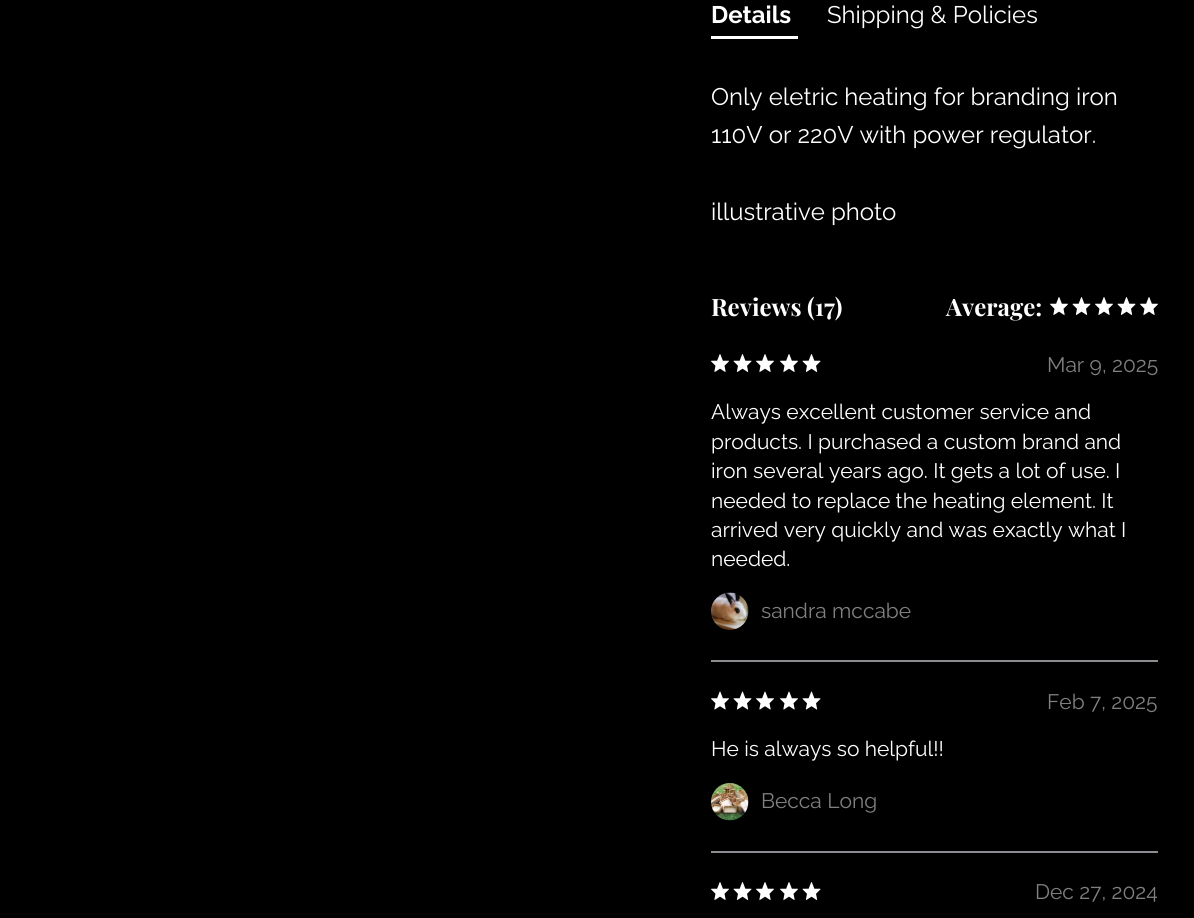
import math
import cairo


def use_color(cr, r, g, b):
  cr.set_source_rgb(r / 255, g / 255, b / 255)

def text(cr, x, y, s, family, size, color, bold=False, italic=False):
  cr.select_font_face(family, cairo.FONT_SLANT_ITALIC if italic else cairo.FONT_SLANT_NORMAL, cairo.FONT_WEIGHT_BOLD if bold else cairo.FONT_WEIGHT_NORMAL)
  cr.set_font_size(size)
  use_color(cr, *color)
  cr.move_to(x, y)
  cr.show_text(s)

def box(cr, x, y, w, h, *color):
  use_color(cr, *color)
  cr.rectangle(x, y, w, h)
  cr.fill()

def picture(cr, path, x, y, w, h):
  cr.save()
  cr.set_source_surface(cairo.ImageSurface.create_from_png(path), x, y)
  cr.rectangle(x, y, w, h)
  cr.fill()
  cr.restore()

def draw(cr):
  use_color(cr, 0, 0, 0)
  cr.paint()
  box(cr, 711, 36, 87, 3, 255, 255, 255)
  picture(cr, "img_01.png", 1050, 297, 18, 18)
  picture(cr, "img_02.png", 1072, 297, 19, 18)
  picture(cr, "img_01.png", 1095, 297, 18, 18)
  picture(cr, "img_02.png", 1117, 297, 19, 18)
  picture(cr, "img_01.png", 1140, 297, 18, 18)
  box(cr, 711, 660, 447, 2, 142, 140, 145)
  picture(cr, "img_01.png", 711, 354, 18, 18)
  picture(cr, "img_02.png", 733, 354, 19, 18)
  picture(cr, "img_01.png", 756, 354, 18, 18)
  picture(cr, "img_01.png", 780, 354, 18, 18)
  picture(cr, "img_02.png", 802, 354, 19, 18)
  picture(cr, "img_03.png", 711, 592, 38, 38)
  box(cr, 711, 851, 447, 2, 142, 140, 145)
  picture(cr, "img_04.png", 711, 691, 18, 19)
  picture(cr, "img_05.png", 733, 691, 19, 19)
  picture(cr, "img_04.png", 756, 691, 18, 19)
  picture(cr, "img_04.png", 780, 691, 18, 19)
  picture(cr, "img_05.png", 802, 691, 19, 19)
  picture(cr, "img_06.png", 711, 783, 38, 38)
  picture(cr, "img_01.png", 711, 882, 18, 18)
  picture(cr, "img_02.png", 733, 882, 19, 18)
  picture(cr, "img_01.png", 756, 882, 18, 18)
  picture(cr, "img_01.png", 780, 882, 18, 18)
  picture(cr, "img_02.png", 802, 882, 19, 18)
  text(cr, 711, 23, "Details", "Raleway", 24, (255, 255, 255), bold=True)
  text(cr, 827, 23, "Shipping & Policies", "Raleway", 24, (255, 255, 255))
  text(cr, 711, 105, "Only eletric heating for branding iron", "Raleway", 24, (255, 255, 255))
  text(cr, 711, 143, "110V or 220V with power regulator.", "Raleway", 24, (255, 255, 255))
  text(cr, 711, 220, "illustrative photo", "Raleway", 24, (255, 255, 255))
  text(cr, 711, 316, "Reviews (17)", "Playfair Display", 24, (255, 255, 255), bold=True)
  text(cr, 946, 316, "Average:", "Playfair Display", 24, (255, 255, 255), bold=True)
  text(cr, 1047, 372, "Mar 9, 2025", "Raleway", 21, (128, 128, 128))
  text(cr, 711, 419, "Always excellent customer service and", "Raleway", 21, (255, 255, 255))
  text(cr, 711, 449, "products. I purchased a custom brand and", "Raleway", 21, (255, 255, 255))
  text(cr, 711, 478, "iron several years ago. It gets a lot of use. I", "Raleway", 21, (255, 255, 255))
  text(cr, 711, 508, "needed to replace the heating element. It", "Raleway", 21, (255, 255, 255))
  text(cr, 711, 537, "arrived very quickly and was exactly what I", "Raleway", 21, (255, 255, 255))
  text(cr, 711, 566, "needed.", "Raleway", 21, (255, 255, 255))
  text(cr, 761, 618, "sandra mccabe", "Raleway", 21, (128, 128, 128))
  text(cr, 1047, 709, "Feb 7, 2025", "Raleway", 21, (128, 128, 128))
  text(cr, 711, 756, "He is always so helpful!!", "Raleway", 21, (255, 255, 255))
  text(cr, 761, 808, "Becca Long", "Raleway", 21, (128, 128, 128))
  text(cr, 1035, 899, "Dec 27, 2024", "Raleway", 21, (128, 128, 128))


surface = cairo.ImageSurface(cairo.FORMAT_RGB24, 1194, 918)
cr = cairo.Context(surface)
options = cairo.FontOptions()
options.set_hint_metrics(cairo.HINT_METRICS_OFF)
options.set_hint_style(cairo.HINT_STYLE_NONE)
cr.set_font_options(options)
cr.set_miter_limit(4)
draw(cr)
surface.write_to_png("out.png")
